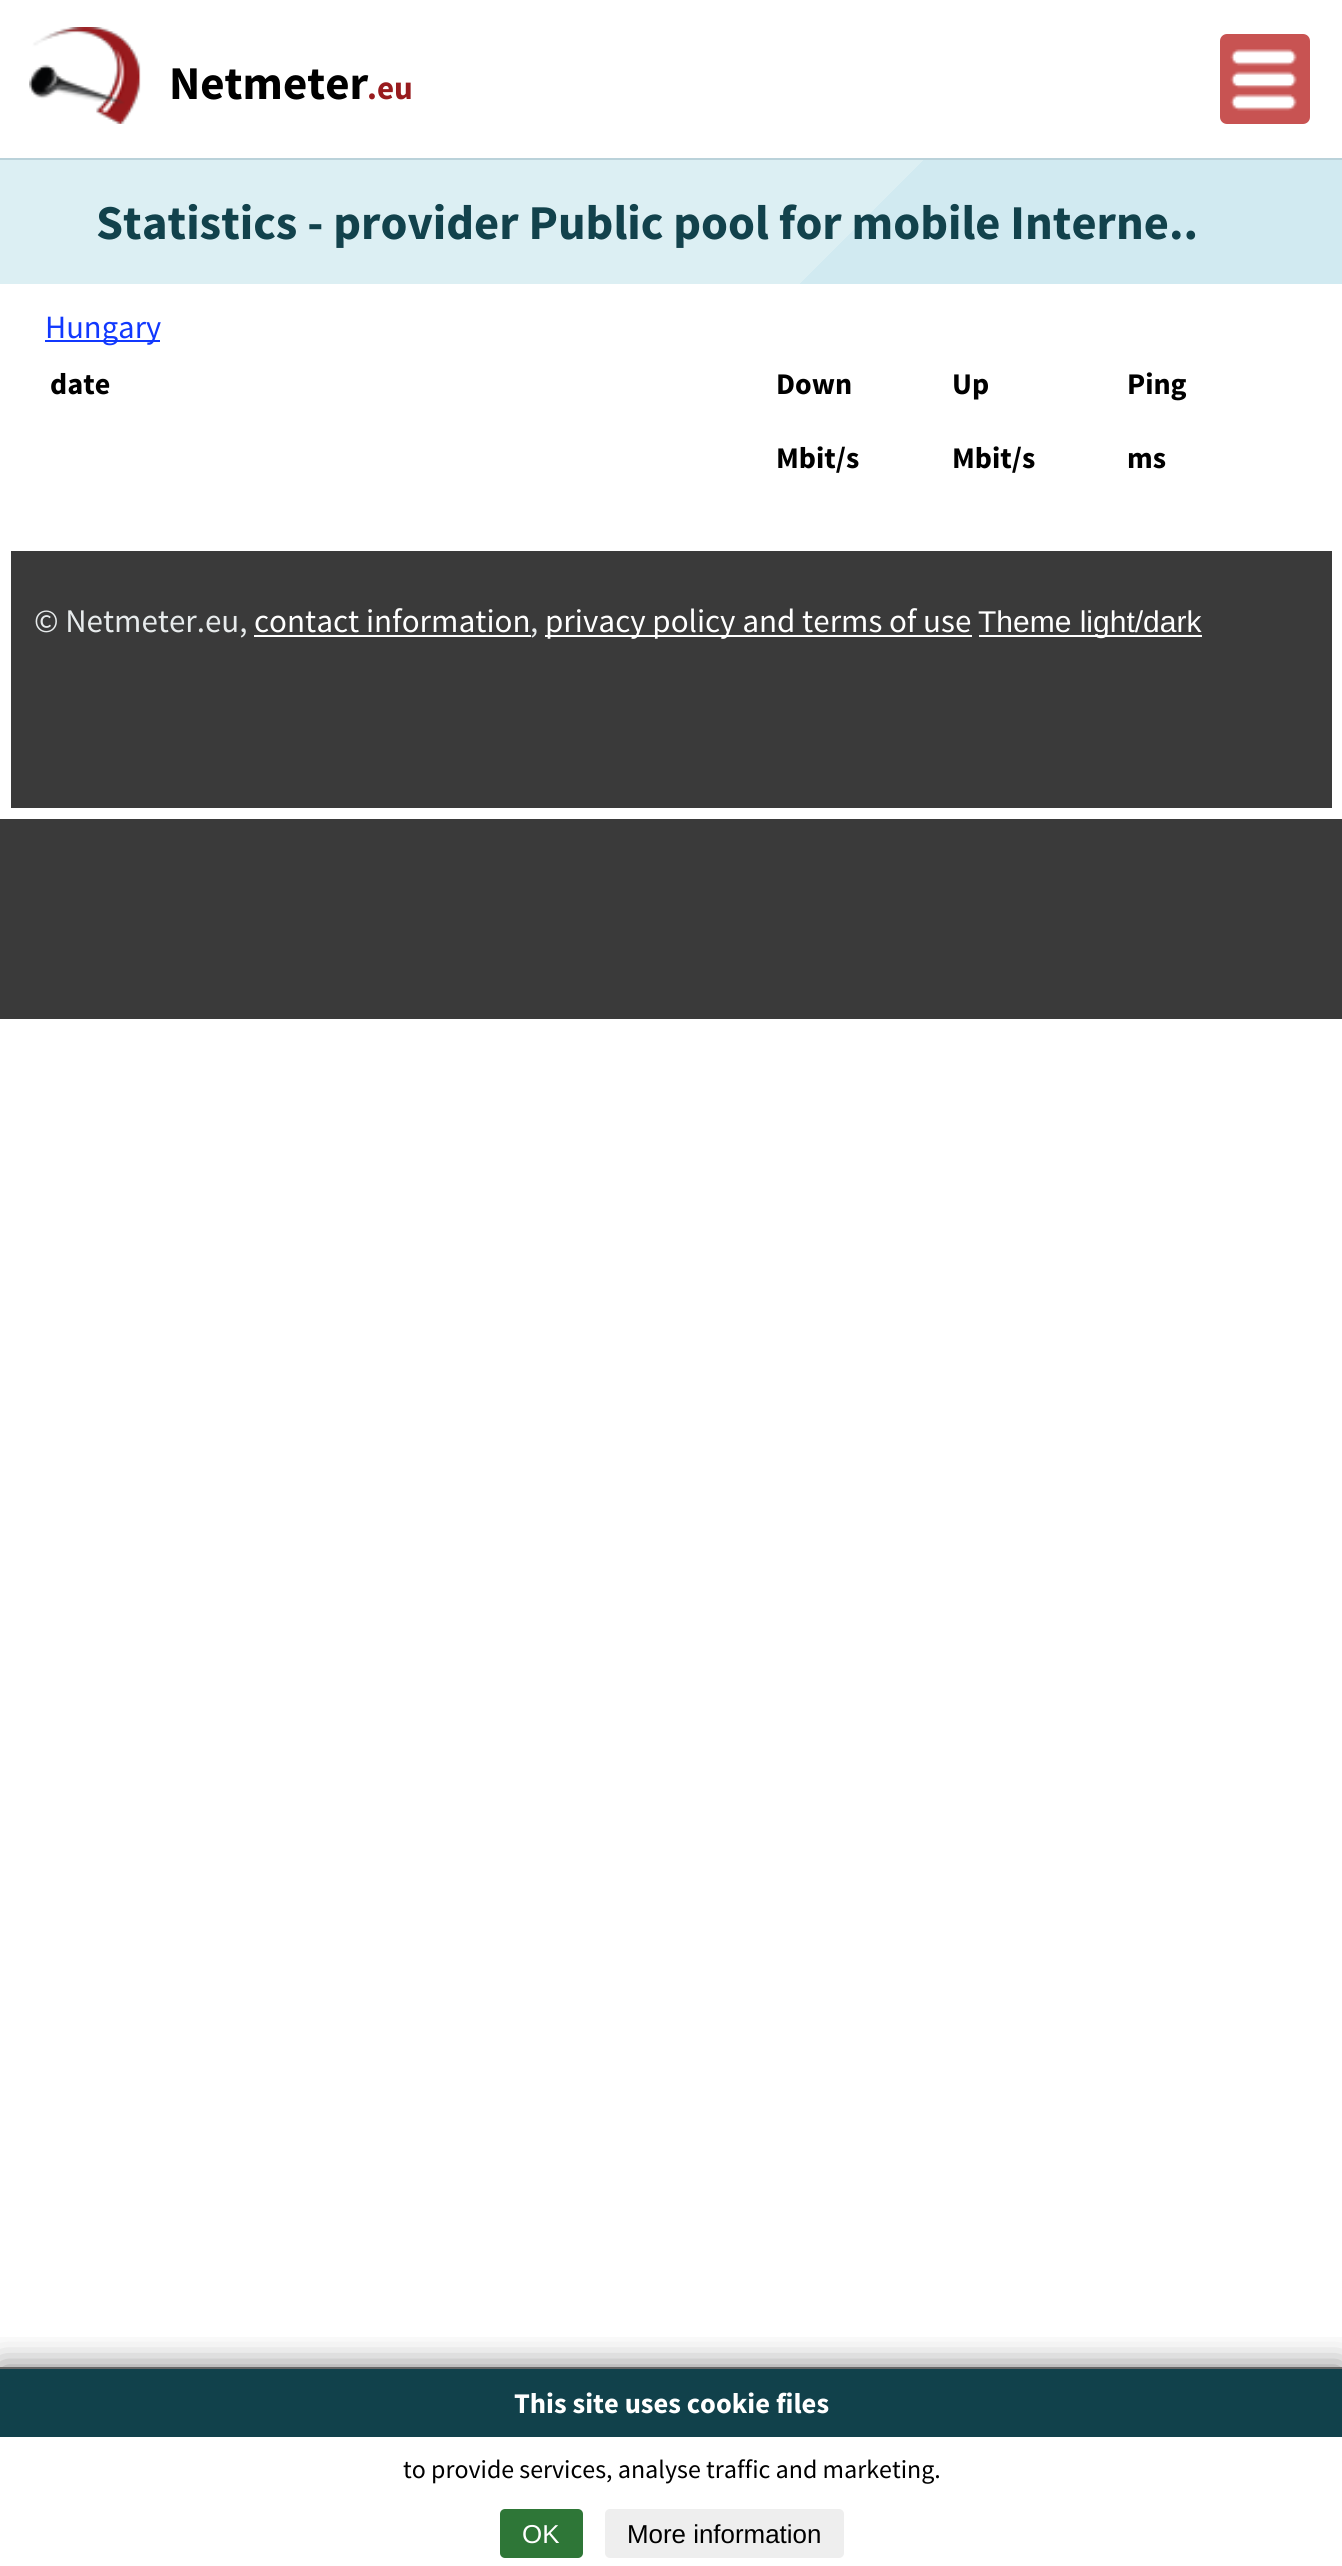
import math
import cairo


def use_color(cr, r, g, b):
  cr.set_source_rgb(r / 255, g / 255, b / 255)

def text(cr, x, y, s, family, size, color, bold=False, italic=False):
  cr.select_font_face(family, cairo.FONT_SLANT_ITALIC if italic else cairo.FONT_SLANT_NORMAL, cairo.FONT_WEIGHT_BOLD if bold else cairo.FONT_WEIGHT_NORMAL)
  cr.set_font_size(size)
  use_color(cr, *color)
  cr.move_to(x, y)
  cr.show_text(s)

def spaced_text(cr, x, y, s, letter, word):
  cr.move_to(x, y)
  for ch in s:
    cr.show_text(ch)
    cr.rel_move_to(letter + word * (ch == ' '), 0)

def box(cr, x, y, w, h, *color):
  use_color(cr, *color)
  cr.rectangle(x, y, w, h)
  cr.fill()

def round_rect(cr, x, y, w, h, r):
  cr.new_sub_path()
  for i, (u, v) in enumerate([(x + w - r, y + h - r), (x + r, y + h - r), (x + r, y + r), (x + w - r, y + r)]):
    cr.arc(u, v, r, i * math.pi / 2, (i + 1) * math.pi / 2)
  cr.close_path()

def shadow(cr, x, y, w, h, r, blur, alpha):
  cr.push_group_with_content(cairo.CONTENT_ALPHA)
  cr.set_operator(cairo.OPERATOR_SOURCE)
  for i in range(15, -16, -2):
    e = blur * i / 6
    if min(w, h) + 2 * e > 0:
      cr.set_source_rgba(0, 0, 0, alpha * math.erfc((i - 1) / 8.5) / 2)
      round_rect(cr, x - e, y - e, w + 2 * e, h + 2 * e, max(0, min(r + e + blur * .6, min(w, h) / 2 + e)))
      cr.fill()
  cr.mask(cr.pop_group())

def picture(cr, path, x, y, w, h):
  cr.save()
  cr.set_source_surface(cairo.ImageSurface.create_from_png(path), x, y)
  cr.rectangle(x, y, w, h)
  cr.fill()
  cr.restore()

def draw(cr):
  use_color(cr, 255, 255, 255)
  cr.paint()
  box(cr, 0, 819, 1342, 200, 58, 58, 58)
  picture(cr, "img_01.png", 29, 27, 112, 97)
  use_color(cr, 200, 83, 82)
  round_rect(cr, 1220, 34, 90, 90, 7)
  cr.fill()
  picture(cr, "img_02.png", 1230, 49, 67, 62)
  gradient = cairo.LinearGradient(305, -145, 1038, 588)
  gradient.add_color_stop_rgba(0, 0.863, 0.937, 0.953, 1)
  gradient.add_color_stop_rgba(0.63, 0.863, 0.937, 0.953, 1)
  gradient.add_color_stop_rgba(0.63, 0.82, 0.918, 0.945, 1)
  gradient.add_color_stop_rgba(1, 0.82, 0.918, 0.945, 1)
  cr.set_source(gradient)
  cr.rectangle(0, 160, 1342, 124)
  cr.fill()
  box(cr, 0, 158, 1342, 2, 186, 210, 218)
  box(cr, 45, 340, 115, 2, 17, 56, 254)
  box(cr, 11, 551, 1321, 257, 58, 58, 58)
  box(cr, 254, 635, 277, 2, 255, 255, 255)
  box(cr, 545, 635, 427, 2, 255, 255, 255)
  box(cr, 979, 635, 223, 2, 255, 255, 255)
  cr.save()
  cr.rectangle(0, 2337, 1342, 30)
  cr.clip()
  use_color(cr, 0, 0, 0)
  shadow(cr, 0, 2367, 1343, 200, 0, 17, 0.5)
  cr.restore()
  box(cr, 0, 2367, 1342, 2, 102, 102, 102)
  box(cr, 0, 2369, 1342, 68, 17, 65, 75)
  use_color(cr, 46, 118, 55)
  round_rect(cr, 500, 2509, 83, 49, 5)
  cr.fill()
  use_color(cr, 238, 238, 238)
  round_rect(cr, 605, 2509, 239, 49, 5)
  cr.fill()
  text(cr, 169, 99, "Netmeter", "Source Sans Pro", 47, (0, 0, 0), bold=True)
  text(cr, 367, 99, ".eu", "Source Sans Pro", 33, (152, 27, 30), bold=True)
  cr.set_font_size(48.6)
  use_color(cr, 18, 66, 76)
  spaced_text(cr, 96, 239, "Statistics - provider Public pool for mobile Interne..", 0, -0.25)
  text(cr, 45, 338, "Hungary", "Source Sans Pro", 32.5, (17, 56, 254))
  text(cr, 50, 394, "date", "Source Sans Pro", 30, (0, 0, 0), bold=True)
  text(cr, 776, 394, "Down", "Source Sans Pro", 30, (0, 0, 0), bold=True)
  text(cr, 952, 394, "Up", "Source Sans Pro", 30, (0, 0, 0), bold=True)
  text(cr, 1127, 394, "Ping", "Source Sans Pro", 30, (0, 0, 0), bold=True)
  text(cr, 776, 468, "Mbit/s", "Source Sans Pro", 30, (0, 0, 0), bold=True)
  text(cr, 952, 468, "Mbit/s", "Source Sans Pro", 30, (0, 0, 0), bold=True)
  text(cr, 1127, 468, "ms", "Source Sans Pro", 30, (0, 0, 0), bold=True)
  text(cr, 34, 632, "© Netmeter.eu,", "Source Sans Pro", 33, (231, 235, 236))
  text(cr, 254, 632, "contact information", "Source Sans Pro", 33, (255, 255, 255))
  text(cr, 530, 632, ",", "Source Sans Pro", 33, (231, 235, 236))
  text(cr, 545, 632, "privacy policy and terms of use", "Source Sans Pro", 33, (255, 255, 255))
  text(cr, 978, 632, "Theme light/dark", "Liberation Sans", 30, (255, 255, 255))
  text(cr, 514, 2413, "This site uses cookie files", "Source Sans Pro", 28.5, (255, 255, 255), bold=True)
  text(cr, 403, 2478, "to provide services, analyse traffic and marketing.", "Source Sans Pro", 25.9, (0, 0, 0))
  text(cr, 522, 2543, "OK", "Liberation Sans", 25.9, (255, 255, 255))
  text(cr, 627, 2543, "More information", "Liberation Sans", 25.9, (0, 0, 0))


surface = cairo.ImageSurface(cairo.FORMAT_RGB24, 1342, 2566)
cr = cairo.Context(surface)
options = cairo.FontOptions()
options.set_hint_metrics(cairo.HINT_METRICS_OFF)
options.set_hint_style(cairo.HINT_STYLE_NONE)
cr.set_font_options(options)
cr.set_miter_limit(4)
draw(cr)
surface.write_to_png("out.png")
